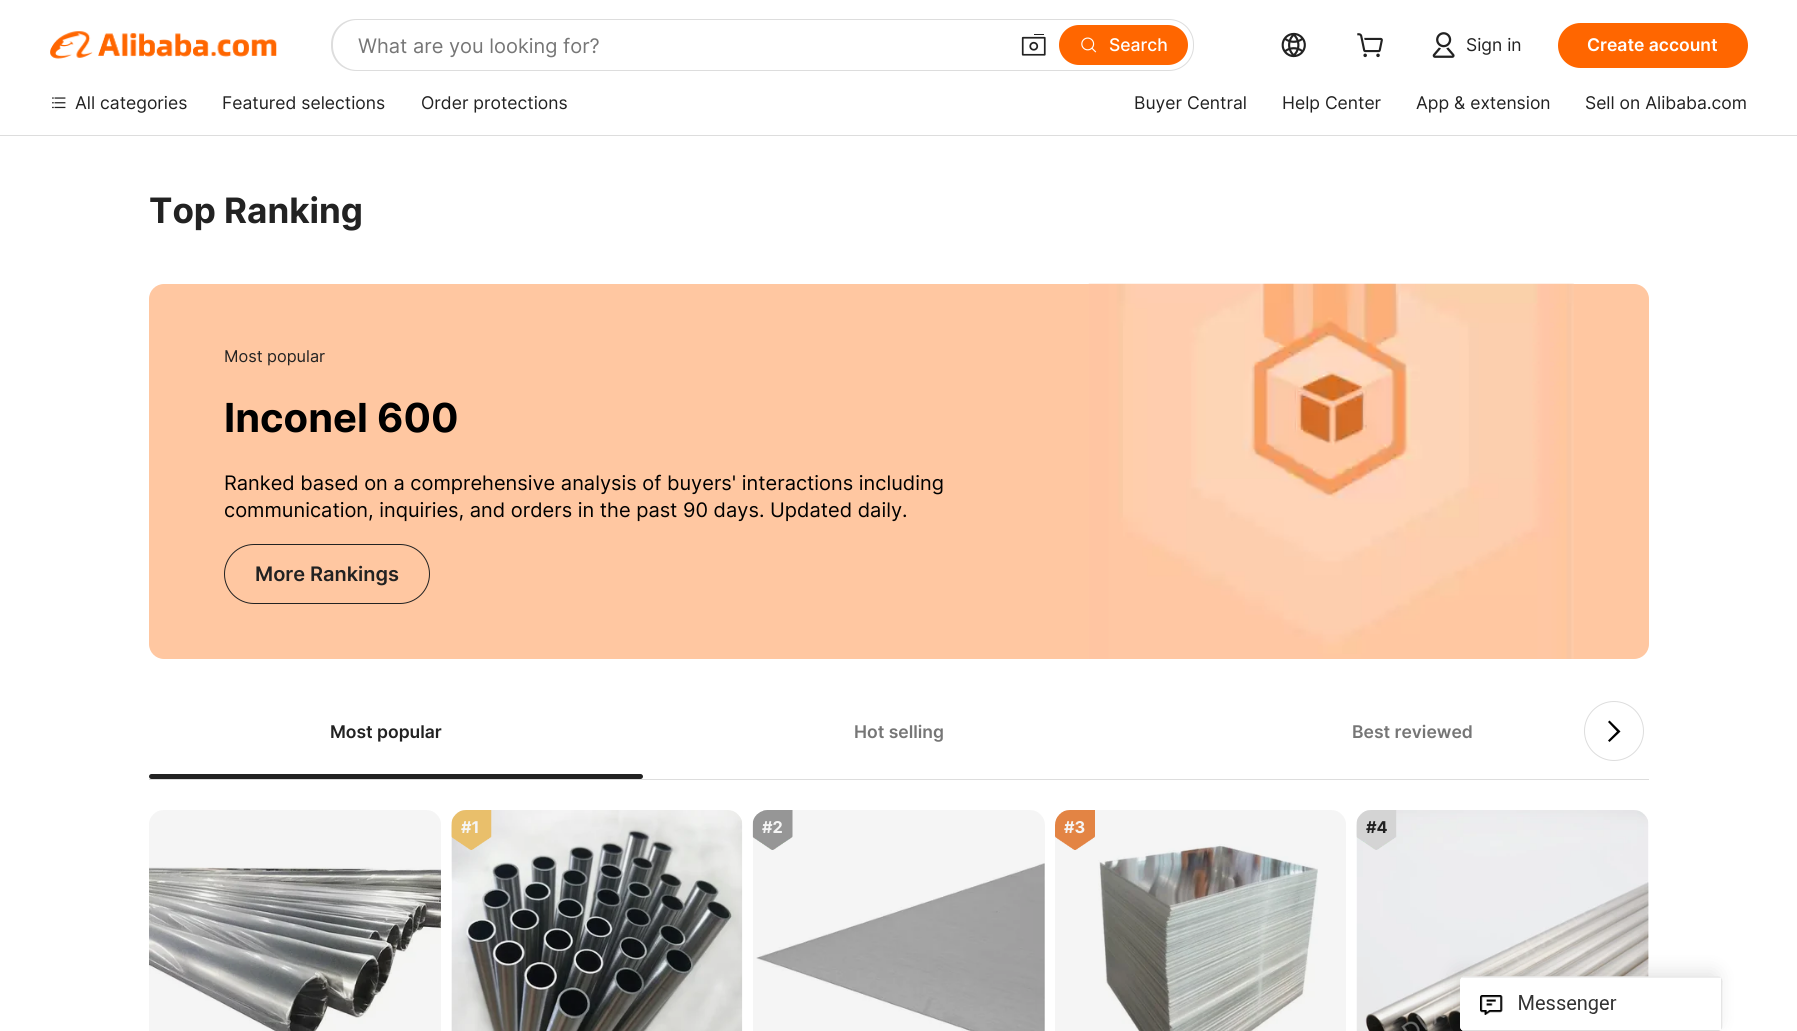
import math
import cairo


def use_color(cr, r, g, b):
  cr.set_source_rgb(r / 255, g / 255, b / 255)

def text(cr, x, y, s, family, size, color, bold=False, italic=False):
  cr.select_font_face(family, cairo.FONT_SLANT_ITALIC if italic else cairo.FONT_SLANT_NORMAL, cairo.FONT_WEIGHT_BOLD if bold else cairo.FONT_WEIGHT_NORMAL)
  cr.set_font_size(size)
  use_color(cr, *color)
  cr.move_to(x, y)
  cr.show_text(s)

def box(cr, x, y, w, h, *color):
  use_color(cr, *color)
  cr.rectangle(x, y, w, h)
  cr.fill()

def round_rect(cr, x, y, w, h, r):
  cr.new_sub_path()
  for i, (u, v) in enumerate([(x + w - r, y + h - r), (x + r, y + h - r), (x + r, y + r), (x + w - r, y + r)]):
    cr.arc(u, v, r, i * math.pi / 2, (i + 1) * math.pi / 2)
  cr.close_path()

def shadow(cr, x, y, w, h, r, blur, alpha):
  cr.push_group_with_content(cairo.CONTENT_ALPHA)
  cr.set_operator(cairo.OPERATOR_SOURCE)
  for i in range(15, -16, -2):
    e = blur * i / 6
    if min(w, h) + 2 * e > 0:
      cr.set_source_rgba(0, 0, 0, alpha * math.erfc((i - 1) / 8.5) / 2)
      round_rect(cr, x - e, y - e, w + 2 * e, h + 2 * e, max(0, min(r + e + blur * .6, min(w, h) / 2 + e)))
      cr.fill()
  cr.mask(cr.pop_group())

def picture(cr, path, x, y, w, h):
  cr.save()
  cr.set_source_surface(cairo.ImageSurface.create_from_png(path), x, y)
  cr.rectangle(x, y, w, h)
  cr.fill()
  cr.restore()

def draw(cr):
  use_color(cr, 255, 255, 255)
  cr.paint()
  box(cr, 0, 135, 1797, 1, 221, 221, 221)
  picture(cr, "img_01.png", 50, 31, 227, 28)
  round_rect(cr, 331, 19, 863, 52, 25)
  cr.fill()
  use_color(cr, 255, 255, 255)
  round_rect(cr, 333, 20, 860, 50, 24)
  cr.fill()
  picture(cr, "img_02.png", 1021, 34, 25, 22)
  use_color(cr, 255, 102, 0)
  round_rect(cr, 1059, 25, 129, 40, 20)
  cr.fill()
  picture(cr, "img_03.png", 1081, 37, 16, 16)
  picture(cr, "img_04.png", 1281, 32, 25, 26)
  picture(cr, "img_05.png", 1357, 33, 26, 25)
  picture(cr, "img_06.png", 1432, 32, 23, 26)
  round_rect(cr, 1558, 23, 190, 45, 22.5)
  cr.fill()
  picture(cr, "img_07.png", 52, 97, 14, 12)
  use_color(cr, 255, 199, 161)
  round_rect(cr, 149, 284, 1500, 375, 15)
  cr.fill()
  round_rect(cr, 224.5, 544.5, 205, 59, 29.5)
  use_color(cr, 34, 34, 34)
  cr.set_line_width(1)
  cr.stroke()
  picture(cr, "img_08.png", 1088, 283, 486, 376)
  box(cr, 149, 779, 1500, 1, 221, 221, 221)
  use_color(cr, 34, 34, 34)
  round_rect(cr, 149, 774, 494, 5, 2.5)
  cr.fill()
  use_color(cr, 0, 0, 0)
  cr.new_path()
  cr.move_to(1617, 731.5)
  cr.line_to(1608, 722)
  cr.line_to(1609.5, 720.5)
  cr.line_to(1620.5, 731.5)
  cr.line_to(1609.5, 742)
  cr.line_to(1608, 740.5)
  cr.close_path()
  cr.fill()
  cr.arc(1614, 731, 29.5, 0, 2 * math.pi)
  use_color(cr, 221, 221, 221)
  cr.stroke()
  picture(cr, "img_10.png", 149, 867, 292, 164)
  picture(cr, "img_09.png", 149, 810, 292, 221)
  picture(cr, "img_11.png", 451, 810, 292, 221)
  picture(cr, "img_13.png", 451, 810, 41, 40)
  picture(cr, "img_15.png", 752, 810, 41, 40)
  picture(cr, "img_16.png", 756, 863, 289, 168)
  picture(cr, "img_18.png", 1055, 810, 40, 40)
  picture(cr, "img_19.png", 1098, 844, 220, 187)
  picture(cr, "img_20.png", 1356, 810, 293, 221)
  picture(cr, "img_22.png", 1356, 810, 41, 40)
  text(cr, 358, 53, "What are you looking for?", "Inter", 20, (118, 118, 118))
  text(cr, 1109, 51, "Search", "Inter Medium", 17.5, (255, 255, 255))
  text(cr, 1466, 51, "Sign in", "Inter", 17.5, (34, 34, 34))
  text(cr, 1587, 51, "Create account", "Inter SemiBold", 17.5, (255, 255, 255))
  text(cr, 75, 109, "All categories", "Inter", 17.5, (34, 34, 34))
  text(cr, 222, 109, "Featured selections", "Inter", 17.5, (34, 34, 34))
  text(cr, 421, 109, "Order protections", "Inter", 17.5, (34, 34, 34))
  text(cr, 1134, 109, "Buyer Central", "Inter", 17.5, (34, 34, 34))
  text(cr, 1282, 109, "Help Center", "Inter", 17.5, (34, 34, 34))
  text(cr, 1416, 109, "App & extension", "Inter", 17.5, (34, 34, 34))
  text(cr, 1585, 109, "Sell on Alibaba.com", "Inter", 17.5, (34, 34, 34))
  text(cr, 149, 223, "Top Ranking", "Inter", 35, (34, 34, 34), bold=True)
  text(cr, 224, 362, "Most popular", "Inter", 16.25, (34, 34, 34))
  text(cr, 224, 432, "Inconel 600", "Inter", 40, (0, 0, 0), bold=True)
  text(cr, 224, 490, "Ranked based on a comprehensive analysis of buyers' interactions including", "Inter", 20, (0, 0, 0))
  text(cr, 224, 517, "communication, inquiries, and orders in the past 90 days. Updated daily.", "Inter", 20, (0, 0, 0))
  text(cr, 255, 581, "More Rankings", "Inter SemiBold", 20, (34, 34, 34))
  text(cr, 330, 738, "Most popular", "Inter SemiBold", 17.5, (34, 34, 34))
  text(cr, 854, 738, "Hot selling", "Inter SemiBold", 17.5, (118, 118, 118))
  text(cr, 1352, 738, "Best reviewed", "Inter SemiBold", 17.5, (118, 118, 118))
  text(cr, 461, 833, "#1", "Inter", 16.25, (255, 255, 255), bold=True)
  picture(cr, "img_12.png", 452, 810, 290, 221)
  text(cr, 762, 833, "#2", "Inter", 16.25, (255, 255, 255), bold=True)
  picture(cr, "img_14.png", 753, 810, 292, 221)
  text(cr, 1064, 833, "#3", "Inter", 16.25, (255, 255, 255), bold=True)
  picture(cr, "img_17.png", 1055, 810, 291, 221)
  text(cr, 1366, 833, "#4", "Inter", 16.25, (34, 34, 34), bold=True)
  picture(cr, "img_21.png", 1357, 810, 291, 221)
  use_color(cr, 0, 0, 0)
  shadow(cr, 1455, 971, 263, 55, 5, 9, 0.1)
  picture(cr, "img_23.png", 1460, 976, 263, 55)


surface = cairo.ImageSurface(cairo.FORMAT_RGB24, 1797, 1031)
cr = cairo.Context(surface)
options = cairo.FontOptions()
options.set_hint_metrics(cairo.HINT_METRICS_OFF)
options.set_hint_style(cairo.HINT_STYLE_NONE)
cr.set_font_options(options)
cr.set_miter_limit(4)
draw(cr)
surface.write_to_png("out.png")
